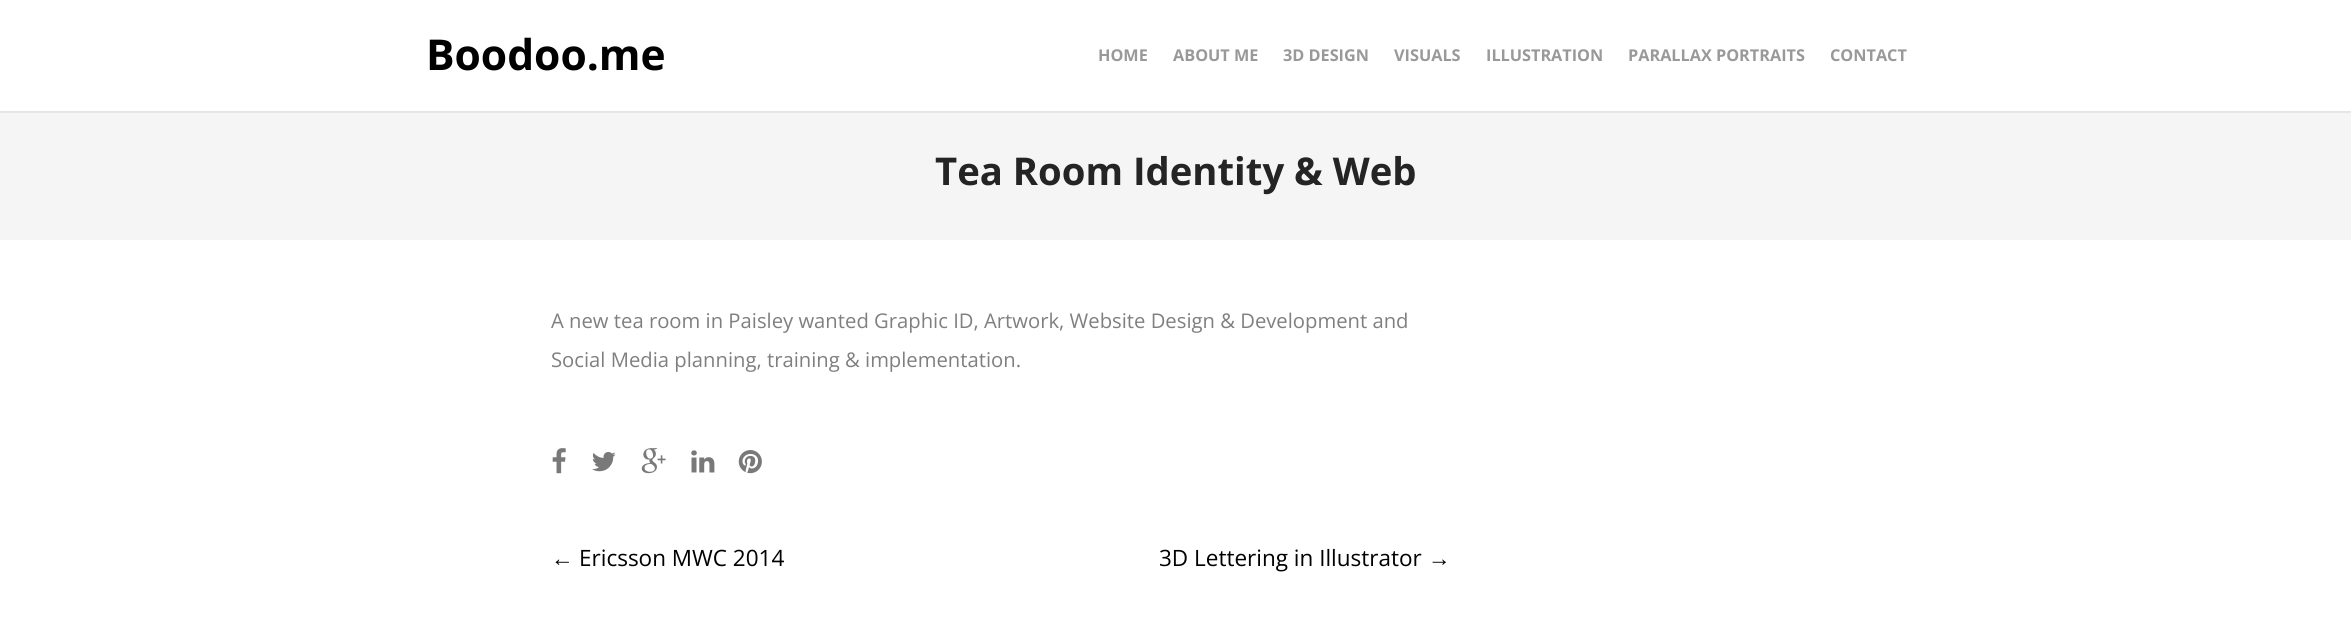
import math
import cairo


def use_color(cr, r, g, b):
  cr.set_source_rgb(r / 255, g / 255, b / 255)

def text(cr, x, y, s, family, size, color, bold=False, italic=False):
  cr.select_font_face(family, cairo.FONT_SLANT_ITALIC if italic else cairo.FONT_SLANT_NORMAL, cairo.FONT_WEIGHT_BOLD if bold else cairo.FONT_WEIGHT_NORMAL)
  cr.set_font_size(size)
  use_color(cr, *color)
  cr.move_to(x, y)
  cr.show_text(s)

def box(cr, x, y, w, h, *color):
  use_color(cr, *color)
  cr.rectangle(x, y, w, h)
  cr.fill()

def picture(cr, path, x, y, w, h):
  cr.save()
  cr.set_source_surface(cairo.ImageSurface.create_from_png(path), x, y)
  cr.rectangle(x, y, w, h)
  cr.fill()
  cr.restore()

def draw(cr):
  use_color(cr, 255, 255, 255)
  cr.paint()
  box(cr, 0, 111, 2351, 2, 230, 230, 230)
  box(cr, 0, 113, 2351, 127, 245, 245, 245)
  picture(cr, "img_01.png", 552, 448, 14, 26)
  picture(cr, "img_02.png", 592, 452, 24, 20)
  picture(cr, "img_03.png", 641, 448, 25, 26)
  picture(cr, "img_04.png", 691, 450, 24, 23)
  picture(cr, "img_05.png", 738, 450, 24, 24)
  text(cr, 426, 70, "Boodoo.me", "Open Sans", 42.5, (0, 0, 0), bold=True)
  text(cr, 1098, 61, "HOME", "Open Sans", 16.25, (153, 153, 153), bold=True)
  text(cr, 1173, 61, "ABOUT ME", "Open Sans", 16.25, (153, 153, 153), bold=True)
  text(cr, 1283, 61, "3D DESIGN", "Open Sans", 16.25, (153, 153, 153), bold=True)
  text(cr, 1394, 61, "VISUALS", "Open Sans", 16.25, (153, 153, 153), bold=True)
  text(cr, 1486, 61, "ILLUSTRATION", "Open Sans", 16.25, (153, 153, 153), bold=True)
  text(cr, 1628, 61, "PARALLAX PORTRAITS", "Open Sans", 16.25, (153, 153, 153), bold=True)
  text(cr, 1830, 61, "CONTACT", "Open Sans", 16.25, (153, 153, 153), bold=True)
  text(cr, 935, 185, "Tea Room Identity & Web", "Open Sans", 38.25, (36, 36, 36), bold=True)
  text(cr, 551, 328, "A new tea room in Paisley wanted Graphic ID, Artwork, Website Design & Development and", "Open Sans", 20.25, (127, 127, 127))
  text(cr, 551, 367, "Social Media planning, training & implementation.", "Open Sans", 20.25, (127, 127, 127))
  text(cr, 551, 566, "←", "Liberation Sans", 22.5, (0, 0, 0))
  text(cr, 579, 566, "Ericsson MWC 2014", "Open Sans", 22.5, (0, 0, 0))
  text(cr, 1159, 566, "3D Lettering in Illustrator", "Open Sans", 22.5, (0, 0, 0))
  text(cr, 1428, 566, "→", "Liberation Sans", 22.5, (0, 0, 0))


surface = cairo.ImageSurface(cairo.FORMAT_RGB24, 2351, 641)
cr = cairo.Context(surface)
options = cairo.FontOptions()
options.set_hint_metrics(cairo.HINT_METRICS_OFF)
options.set_hint_style(cairo.HINT_STYLE_NONE)
cr.set_font_options(options)
cr.set_miter_limit(4)
draw(cr)
surface.write_to_png("out.png")
